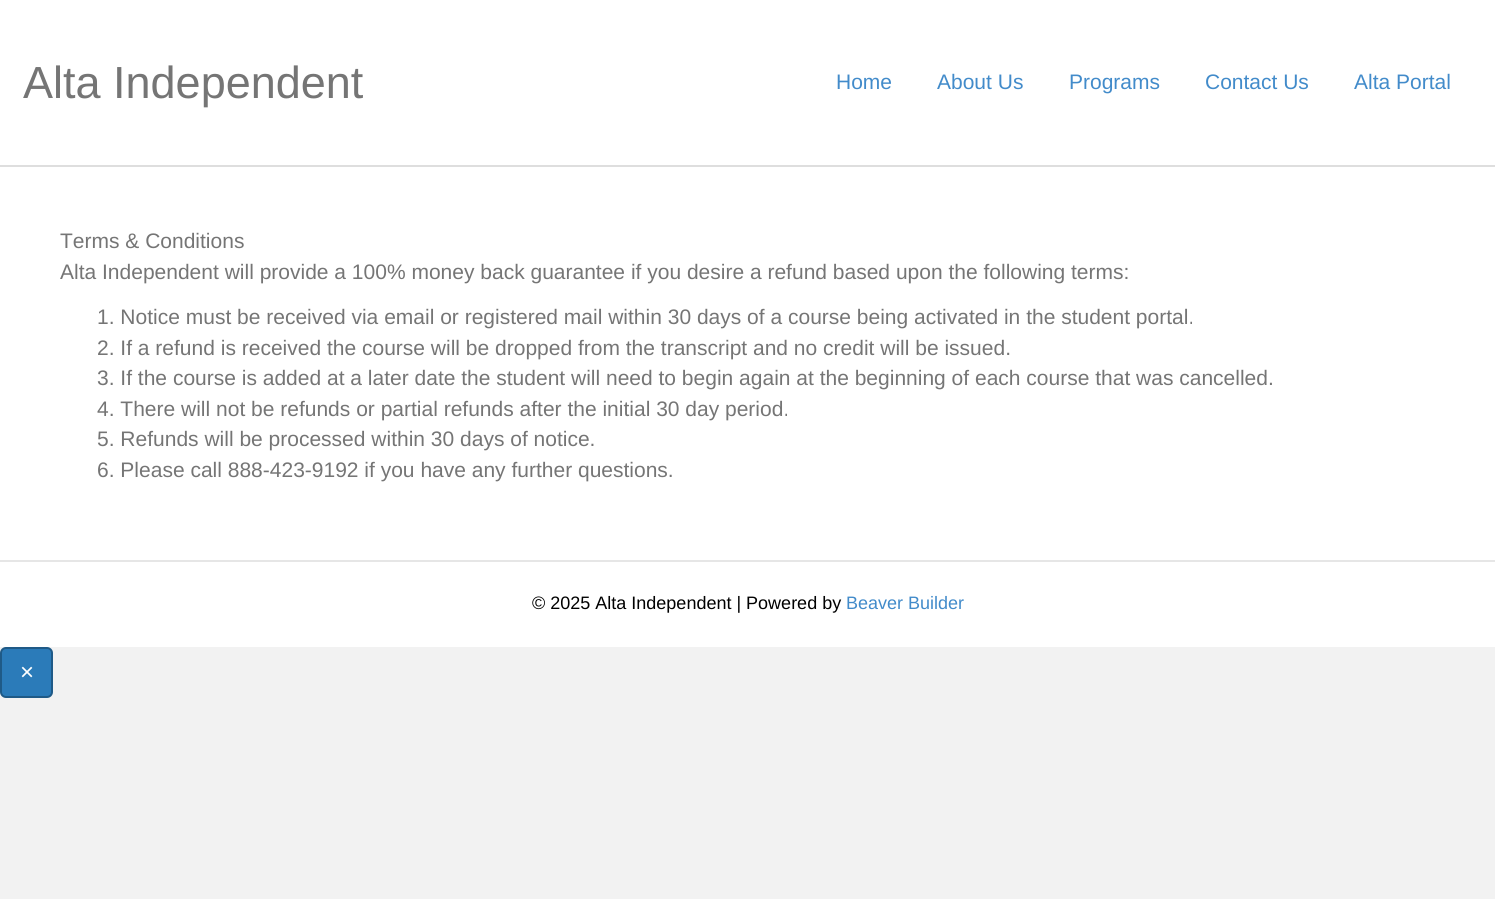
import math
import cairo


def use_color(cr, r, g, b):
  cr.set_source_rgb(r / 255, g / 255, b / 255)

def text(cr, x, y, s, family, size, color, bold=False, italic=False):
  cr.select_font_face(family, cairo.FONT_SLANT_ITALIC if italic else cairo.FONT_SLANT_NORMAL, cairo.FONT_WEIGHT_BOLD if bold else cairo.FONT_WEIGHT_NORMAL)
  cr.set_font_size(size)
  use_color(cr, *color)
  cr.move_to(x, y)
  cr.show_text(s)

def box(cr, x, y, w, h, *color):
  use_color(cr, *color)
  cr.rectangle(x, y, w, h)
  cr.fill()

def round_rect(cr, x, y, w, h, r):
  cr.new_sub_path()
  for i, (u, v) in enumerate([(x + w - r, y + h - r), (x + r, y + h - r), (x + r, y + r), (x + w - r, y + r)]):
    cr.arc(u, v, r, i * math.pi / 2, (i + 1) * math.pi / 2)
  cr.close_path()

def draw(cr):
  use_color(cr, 242, 242, 242)
  cr.paint()
  box(cr, 0, 0, 1495, 165, 255, 255, 255)
  box(cr, 0, 165, 1495, 2, 222, 222, 222)
  box(cr, 0, 167, 1495, 393, 255, 255, 255)
  box(cr, 0, 562, 1495, 85, 255, 255, 255)
  box(cr, 0, 560, 1495, 2, 230, 230, 230)
  use_color(cr, 43, 123, 185)
  round_rect(cr, 1, 648, 51, 49, 5)
  cr.fill_preserve()
  use_color(cr, 31, 90, 135)
  cr.stroke()
  text(cr, 23, 98, "Alta Independent", "Liberation Sans", 45, (117, 117, 117))
  text(cr, 836, 89, "Home", "Liberation Sans", 21, (66, 139, 202))
  text(cr, 937, 89, "About Us", "Liberation Sans", 21, (66, 139, 202))
  text(cr, 1069, 89, "Programs", "Liberation Sans", 21, (66, 139, 202))
  text(cr, 1205, 89, "Contact Us", "Liberation Sans", 21, (66, 139, 202))
  text(cr, 1354, 89, "Alta Portal", "Liberation Sans", 21, (66, 139, 202))
  text(cr, 60, 248, "Terms & Conditions", "Liberation Sans", 21, (117, 117, 117))
  text(cr, 60, 279, "Alta Independent will provide a 100% money back guarantee if you desire a refund based upon the following terms:", "Liberation Sans", 21, (117, 117, 117))
  text(cr, 97, 324, "1. Notice must be received via email or registered mail within 30 days of a course being activated in the student portal.", "Liberation Sans", 21, (117, 117, 117))
  text(cr, 97, 355, "2. If a refund is received the course will be dropped from the transcript and no credit will be issued.", "Liberation Sans", 21, (117, 117, 117))
  text(cr, 97, 385, "3. If the course is added at a later date the student will need to begin again at the beginning of each course that was cancelled.", "Liberation Sans", 21, (117, 117, 117))
  text(cr, 97, 416, "4. There will not be refunds or partial refunds after the initial 30 day period.", "Liberation Sans", 21, (117, 117, 117))
  text(cr, 97, 446, "5. Refunds will be processed within 30 days of notice.", "Liberation Sans", 21, (117, 117, 117))
  text(cr, 97, 477, "6. Please call 888-423-9192 if you have any further questions.", "Liberation Sans", 21, (117, 117, 117))
  text(cr, 532, 609, "© 2025 Alta Independent | Powered by", "Liberation Sans", 18, (0, 0, 0))
  text(cr, 846, 609, "Beaver Builder", "Liberation Sans", 18, (66, 139, 202))
  text(cr, 20, 680, "×", "Liberation Sans", 24, (255, 255, 255))


surface = cairo.ImageSurface(cairo.FORMAT_RGB24, 1495, 899)
cr = cairo.Context(surface)
options = cairo.FontOptions()
options.set_hint_metrics(cairo.HINT_METRICS_OFF)
options.set_hint_style(cairo.HINT_STYLE_NONE)
cr.set_font_options(options)
cr.set_miter_limit(4)
draw(cr)
surface.write_to_png("out.png")
